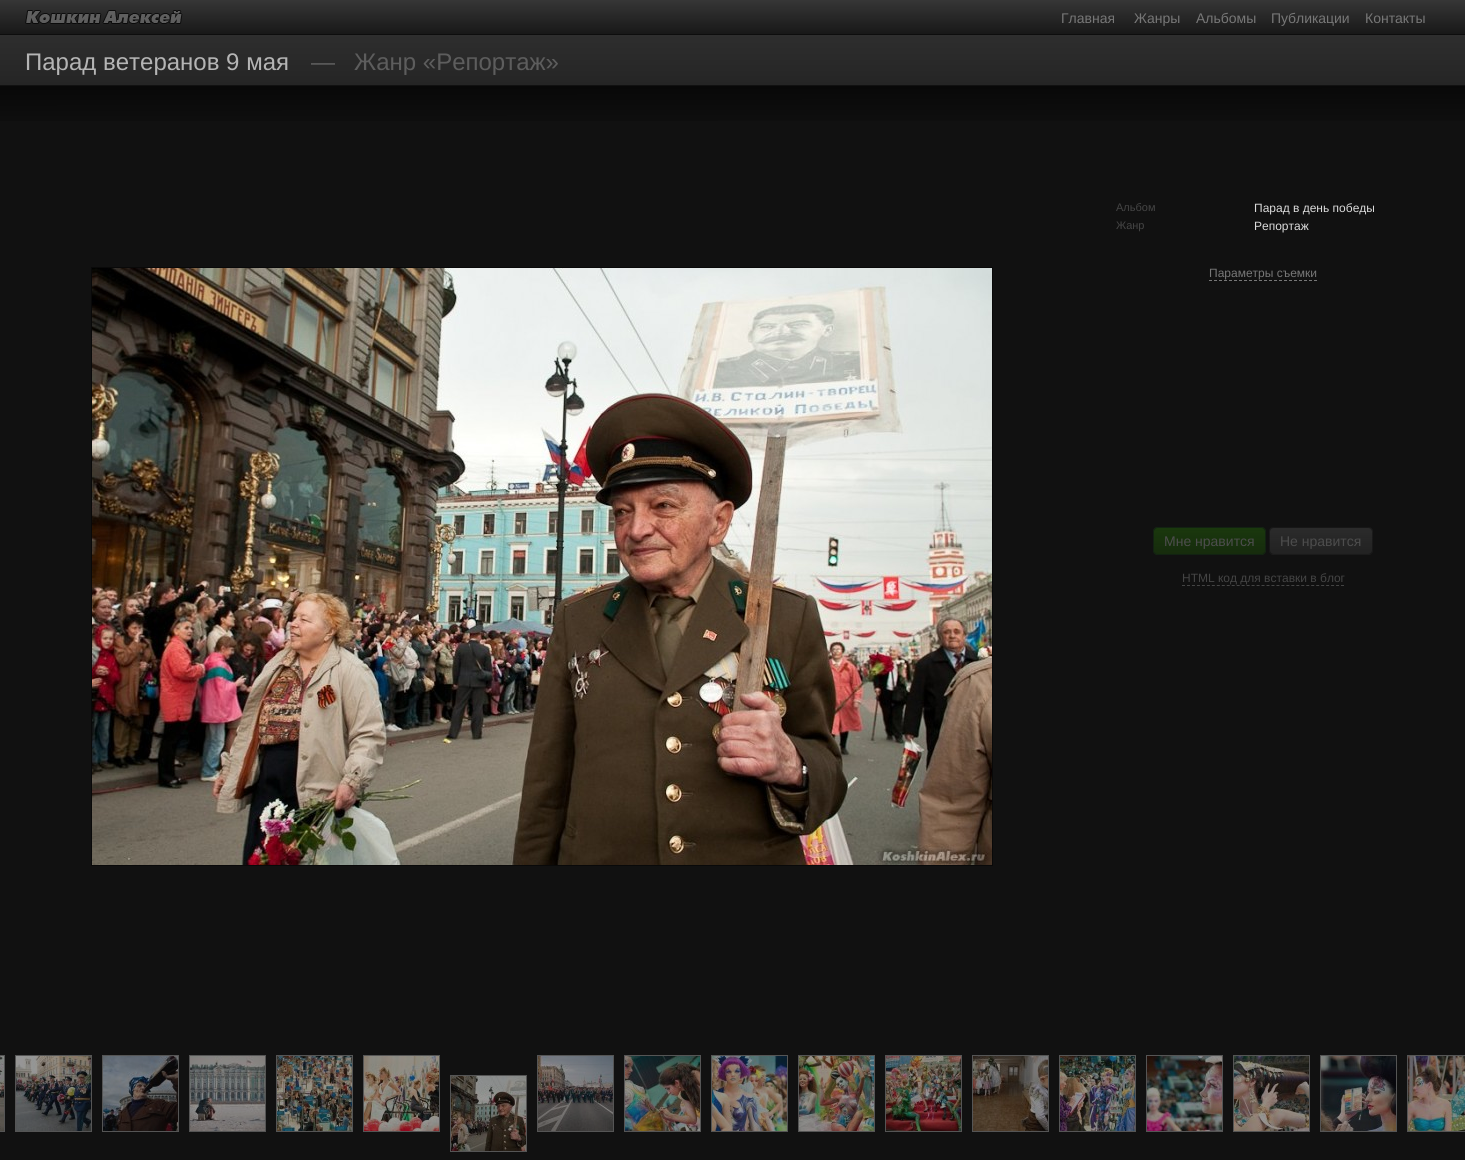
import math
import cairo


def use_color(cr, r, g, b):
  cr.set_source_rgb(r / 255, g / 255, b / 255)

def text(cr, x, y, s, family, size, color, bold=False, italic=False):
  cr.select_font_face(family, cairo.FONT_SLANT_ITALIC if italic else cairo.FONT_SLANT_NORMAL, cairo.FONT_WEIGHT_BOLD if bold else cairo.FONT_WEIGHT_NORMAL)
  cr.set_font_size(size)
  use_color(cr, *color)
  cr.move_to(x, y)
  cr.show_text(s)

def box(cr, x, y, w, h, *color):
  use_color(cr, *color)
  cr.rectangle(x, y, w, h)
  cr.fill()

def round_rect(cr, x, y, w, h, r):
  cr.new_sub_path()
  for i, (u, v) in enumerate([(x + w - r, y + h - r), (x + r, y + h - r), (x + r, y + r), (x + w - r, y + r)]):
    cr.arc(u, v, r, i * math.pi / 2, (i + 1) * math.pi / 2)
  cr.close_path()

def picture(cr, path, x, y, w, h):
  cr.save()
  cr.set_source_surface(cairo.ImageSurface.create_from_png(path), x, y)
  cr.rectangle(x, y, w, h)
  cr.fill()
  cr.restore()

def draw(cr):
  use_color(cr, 17, 17, 17)
  cr.paint()
  gradient = cairo.LinearGradient(733, 0, 733, 34)
  gradient.add_color_stop_rgba(0, 0.212, 0.212, 0.212, 1)
  gradient.add_color_stop_rgba(1, 0.094, 0.094, 0.094, 1)
  cr.set_source(gradient)
  cr.rectangle(0, 0, 1465, 34)
  cr.fill()
  box(cr, 0, 34, 1465, 1, 13, 13, 13)
  picture(cr, "img_01.png", 25, 10, 158, 14)
  gradient = cairo.LinearGradient(733, 35, 733, 85)
  gradient.add_color_stop_rgba(0, 0.18, 0.18, 0.18, 1)
  gradient.add_color_stop_rgba(1, 0.145, 0.145, 0.145, 1)
  cr.set_source(gradient)
  cr.rectangle(0, 35, 1465, 50)
  cr.fill()
  gradient = cairo.LinearGradient(732, 86, 733, 1046)
  gradient.add_color_stop_rgba(0, 0.031, 0.031, 0.031, 1)
  gradient.add_color_stop_rgba(0.05, 0.067, 0.067, 0.067, 1)
  cr.set_source(gradient)
  cr.rectangle(0, 86, 1465, 35)
  cr.fill()
  cr.rectangle(91.5, 267.5, 901, 598)
  use_color(cr, 9, 9, 9)
  cr.set_line_width(1)
  cr.stroke()
  picture(cr, "img_02.png", 92, 268, 900, 597)
  cr.new_path()
  cr.move_to(1209, 280.5)
  cr.line_to(1317, 280.5)
  use_color(cr, 119, 119, 119)
  cr.set_dash([3, 2])
  cr.stroke()
  use_color(cr, 26, 56, 13)
  round_rect(cr, 1153, 527, 113, 28, 5)
  cr.fill()
  cr.save()
  round_rect(cr, 1153, 527, 113, 28, 5)
  cr.clip()
  gradient = cairo.LinearGradient(1154, 554, 1154, 528)
  gradient.add_color_stop_rgba(0, 0.051, 0.051, 0.051, 0.3)
  gradient.add_color_stop_rgba(1, 0.051, 0.051, 0.051, 0)
  cr.set_source(gradient)
  cr.rectangle(1153, 530, 113, 24)
  cr.fill()
  cr.restore()
  round_rect(cr, 1153.5, 527.5, 112, 27, 4.5)
  use_color(cr, 18, 34, 18)
  cr.set_dash([])
  cr.stroke()
  use_color(cr, 43, 43, 43)
  round_rect(cr, 1269, 527, 104, 28, 5)
  cr.fill()
  cr.save()
  round_rect(cr, 1269, 527, 104, 28, 5)
  cr.clip()
  gradient = cairo.LinearGradient(1270, 528, 1270, 502)
  gradient.add_color_stop_rgba(0, 0.051, 0.051, 0.051, 0.3)
  gradient.add_color_stop_rgba(1, 0.051, 0.051, 0.051, 0)
  cr.set_source(gradient)
  cr.rectangle(1269, 527, 104, 1)
  cr.fill()
  gradient = cairo.LinearGradient(1270, 554, 1270, 528)
  gradient.add_color_stop_rgba(0, 0.051, 0.051, 0.051, 0.3)
  gradient.add_color_stop_rgba(1, 0.051, 0.051, 0.051, 0)
  cr.set_source(gradient)
  cr.rectangle(1269, 530, 104, 24)
  cr.fill()
  cr.restore()
  round_rect(cr, 1269.5, 527.5, 103, 27, 4.5)
  cr.set_source_rgba(0.051, 0.051, 0.051, 0.5)
  cr.stroke()
  cr.new_path()
  cr.move_to(1182, 585.5)
  cr.line_to(1344, 585.5)
  use_color(cr, 68, 68, 68)
  cr.set_dash([3, 1.97])
  cr.stroke()
  cr.rectangle(-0.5, 1055.5, 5, 76)
  use_color(cr, 85, 85, 85)
  cr.set_dash([])
  cr.stroke()
  picture(cr, "img_03.png", 0, 1056, 4, 75)
  cr.rectangle(15.5, 1055.5, 76, 76)
  cr.stroke()
  picture(cr, "img_04.png", 16, 1056, 75, 75)
  cr.rectangle(102.5, 1055.5, 76, 76)
  cr.stroke()
  picture(cr, "img_05.png", 103, 1056, 75, 75)
  cr.rectangle(189.5, 1055.5, 76, 76)
  cr.stroke()
  picture(cr, "img_06.png", 190, 1056, 75, 75)
  cr.rectangle(276.5, 1055.5, 76, 76)
  cr.stroke()
  picture(cr, "img_07.png", 277, 1056, 75, 75)
  cr.rectangle(363.5, 1055.5, 76, 76)
  cr.stroke()
  picture(cr, "img_08.png", 364, 1056, 75, 75)
  cr.rectangle(450.5, 1075.5, 76, 76)
  cr.stroke()
  picture(cr, "img_09.png", 451, 1076, 75, 75)
  cr.rectangle(537.5, 1055.5, 76, 76)
  cr.stroke()
  picture(cr, "img_10.png", 538, 1056, 75, 75)
  cr.rectangle(624.5, 1055.5, 76, 76)
  cr.stroke()
  picture(cr, "img_11.png", 625, 1056, 75, 75)
  cr.rectangle(711.5, 1055.5, 76, 76)
  cr.stroke()
  picture(cr, "img_12.png", 712, 1056, 75, 75)
  cr.rectangle(798.5, 1055.5, 76, 76)
  cr.stroke()
  picture(cr, "img_13.png", 799, 1056, 75, 75)
  cr.rectangle(885.5, 1055.5, 76, 76)
  cr.stroke()
  picture(cr, "img_14.png", 886, 1056, 75, 75)
  cr.rectangle(972.5, 1055.5, 76, 76)
  cr.stroke()
  picture(cr, "img_15.png", 973, 1056, 75, 75)
  cr.rectangle(1059.5, 1055.5, 76, 76)
  cr.stroke()
  picture(cr, "img_16.png", 1060, 1056, 75, 75)
  cr.rectangle(1146.5, 1055.5, 76, 76)
  cr.stroke()
  picture(cr, "img_17.png", 1147, 1056, 75, 75)
  cr.rectangle(1233.5, 1055.5, 76, 76)
  cr.stroke()
  picture(cr, "img_18.png", 1234, 1056, 75, 75)
  cr.rectangle(1320.5, 1055.5, 76, 76)
  cr.stroke()
  picture(cr, "img_19.png", 1321, 1056, 75, 75)
  cr.rectangle(1407.5, 1055.5, 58, 76)
  cr.stroke()
  picture(cr, "img_20.png", 1408, 1056, 57, 75)
  text(cr, 1061, 23, "Главная", "Liberation Sans", 14, (119, 119, 119))
  text(cr, 1134, 23, "Жанры", "Liberation Sans", 14, (119, 119, 119))
  text(cr, 1196, 23, "Альбомы", "Liberation Sans", 14, (119, 119, 119))
  text(cr, 1271, 23, "Публикации", "Liberation Sans", 14, (119, 119, 119))
  text(cr, 1365, 23, "Контакты", "Liberation Sans", 14, (119, 119, 119))
  text(cr, 25, 70, "Парад ветеранов 9 мая", "Liberation Sans", 24, (181, 181, 181))
  text(cr, 311, 70, "—", "Liberation Sans", 24, (93, 93, 93))
  text(cr, 354, 70, "Жанр «Репортаж»", "Liberation Sans", 24, (93, 93, 93))
  text(cr, 1116, 211, "Альбом", "Liberation Sans", 11, (68, 68, 68))
  text(cr, 1254, 212, "Парад в день победы", "Liberation Sans", 12, (219, 219, 219))
  text(cr, 1116, 229, "Жанр", "Liberation Sans", 11, (68, 68, 68))
  text(cr, 1254, 230, "Репортаж", "Liberation Sans", 12, (219, 219, 219))
  text(cr, 1209, 277, "Параметры съемки", "Liberation Sans", 12, (119, 119, 119))
  text(cr, 1164, 546, "Мне нравится", "Liberation Sans", 14, (77, 77, 77))
  text(cr, 1280, 546, "Не нравится", "Liberation Sans", 14, (77, 77, 77))
  text(cr, 1182, 582, "HTML код для вставки в блог", "Liberation Sans", 12, (68, 68, 68))


surface = cairo.ImageSurface(cairo.FORMAT_RGB24, 1465, 1160)
cr = cairo.Context(surface)
options = cairo.FontOptions()
options.set_hint_metrics(cairo.HINT_METRICS_OFF)
options.set_hint_style(cairo.HINT_STYLE_NONE)
cr.set_font_options(options)
cr.set_miter_limit(4)
draw(cr)
surface.write_to_png("out.png")
